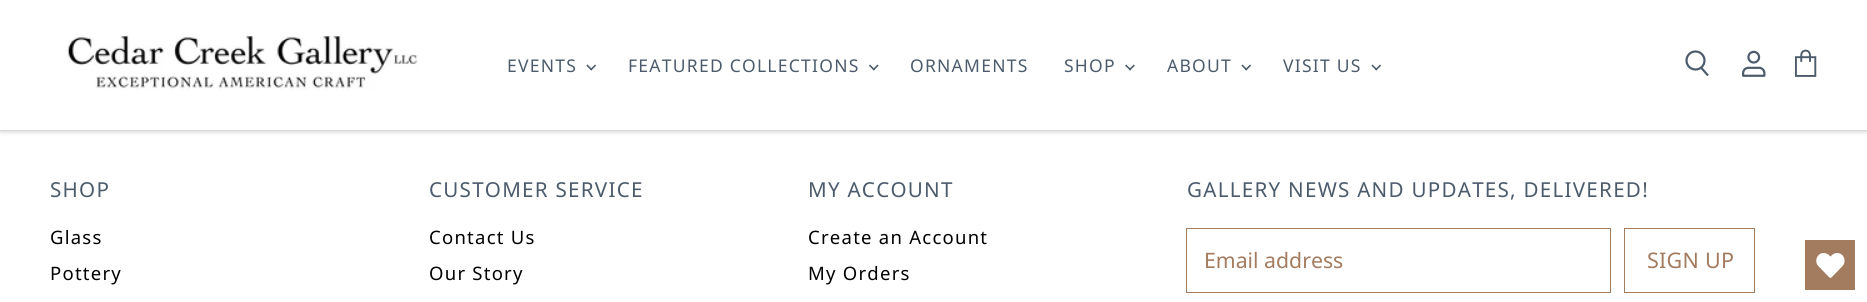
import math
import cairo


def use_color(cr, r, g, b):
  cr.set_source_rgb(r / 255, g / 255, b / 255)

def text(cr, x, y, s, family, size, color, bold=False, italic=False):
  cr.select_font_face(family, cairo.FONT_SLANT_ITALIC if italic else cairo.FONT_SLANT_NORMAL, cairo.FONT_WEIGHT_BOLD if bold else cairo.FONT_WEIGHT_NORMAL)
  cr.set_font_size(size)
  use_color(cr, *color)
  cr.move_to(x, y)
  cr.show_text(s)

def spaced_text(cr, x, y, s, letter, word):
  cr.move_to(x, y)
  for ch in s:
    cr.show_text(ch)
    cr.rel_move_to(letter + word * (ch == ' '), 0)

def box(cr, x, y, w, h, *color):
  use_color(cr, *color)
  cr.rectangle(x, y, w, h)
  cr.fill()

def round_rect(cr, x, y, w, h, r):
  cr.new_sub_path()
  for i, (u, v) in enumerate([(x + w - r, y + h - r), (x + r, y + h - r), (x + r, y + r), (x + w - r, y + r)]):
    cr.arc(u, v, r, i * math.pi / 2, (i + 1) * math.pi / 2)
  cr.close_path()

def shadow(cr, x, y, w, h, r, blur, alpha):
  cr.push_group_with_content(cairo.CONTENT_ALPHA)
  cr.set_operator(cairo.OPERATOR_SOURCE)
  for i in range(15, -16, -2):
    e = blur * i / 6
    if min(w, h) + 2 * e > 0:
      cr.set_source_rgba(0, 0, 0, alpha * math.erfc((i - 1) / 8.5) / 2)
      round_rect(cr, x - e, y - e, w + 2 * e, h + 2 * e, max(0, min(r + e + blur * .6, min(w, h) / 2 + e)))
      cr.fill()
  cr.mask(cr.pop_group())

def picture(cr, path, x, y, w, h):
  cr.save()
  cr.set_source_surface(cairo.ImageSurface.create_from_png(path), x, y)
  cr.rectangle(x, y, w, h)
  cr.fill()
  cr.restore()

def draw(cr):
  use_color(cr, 255, 255, 255)
  cr.paint()
  use_color(cr, 0, 0, 0)
  shadow(cr, 0, 1, 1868, 130, 0, 2.5, 0.25)
  box(cr, 0, 0, 1867, 130, 255, 255, 255)
  picture(cr, "img_01.png", 65, 35, 354, 55)
  picture(cr, "img_02.png", 586, 64, 10, 7)
  picture(cr, "img_03.png", 869, 64, 10, 7)
  picture(cr, "img_04.png", 1125, 64, 10, 7)
  picture(cr, "img_02.png", 1241, 64, 10, 7)
  picture(cr, "img_02.png", 1371, 64, 10, 7)
  cr.new_path()
  cr.move_to(1708, 75.5)
  cr.line_to(1701, 67.5)
  use_color(cr, 76, 91, 107)
  cr.set_line_width(2.2)
  cr.stroke()
  cr.arc(1695.5, 60.5, 9, 0, 2 * math.pi)
  cr.stroke()
  picture(cr, "img_05.png", 1742, 50, 24, 27)
  picture(cr, "img_06.png", 1795, 49, 22, 28)
  cr.rectangle(1186.5, 228.5, 424, 64)
  use_color(cr, 163, 123, 95)
  cr.set_line_width(1)
  cr.stroke()
  cr.rectangle(1624.5, 228.5, 130, 64)
  cr.stroke()
  box(cr, 1805, 240, 50, 50, 163, 123, 95)
  picture(cr, "img_07.png", 1816, 253, 29, 25)
  cr.select_font_face("Noto Sans")
  cr.set_font_size(17.5)
  use_color(cr, 76, 91, 107)
  spaced_text(cr, 507, 72, "EVENTS", 1.25, 0)
  spaced_text(cr, 628, 72, "FEATURED COLLECTIONS", 1.25, 0)
  spaced_text(cr, 910, 72, "ORNAMENTS", 1.25, 0)
  spaced_text(cr, 1064, 72, "SHOP", 1.25, 0)
  spaced_text(cr, 1167, 72, "ABOUT", 1.25, 0)
  spaced_text(cr, 1283, 72, "VISIT US", 1.25, 0)
  cr.set_font_size(20.6)
  spaced_text(cr, 50, 197, "SHOP", 1.25, 0)
  cr.set_font_size(18.5)
  use_color(cr, 0, 0, 0)
  spaced_text(cr, 50, 244, "Glass", 1.25, 0)
  spaced_text(cr, 50, 280, "Pottery", 1.25, 0)
  cr.set_font_size(20.6)
  use_color(cr, 76, 91, 107)
  spaced_text(cr, 429, 197, "CUSTOMER SERVICE", 1.25, 0)
  cr.set_font_size(18.5)
  use_color(cr, 0, 0, 0)
  spaced_text(cr, 429, 244, "Contact Us", 1.25, 0)
  spaced_text(cr, 429, 280, "Our Story", 1.25, 0)
  cr.set_font_size(20.6)
  use_color(cr, 76, 91, 107)
  spaced_text(cr, 808, 197, "MY ACCOUNT", 1.25, 0)
  cr.set_font_size(18.5)
  use_color(cr, 0, 0, 0)
  spaced_text(cr, 808, 244, "Create an Account", 1.25, 0)
  spaced_text(cr, 808, 280, "My Orders", 1.25, 0)
  cr.set_font_size(20.6)
  use_color(cr, 76, 91, 107)
  spaced_text(cr, 1187, 197, "GALLERY NEWS AND UPDATES, DELIVERED!", 1.25, 0)
  text(cr, 1204, 268, "Email address", "Noto Sans", 21.25, (163, 123, 95))
  cr.set_font_size(21.5)
  spaced_text(cr, 1647, 268, "SIGN UP", 0.25, 0)


surface = cairo.ImageSurface(cairo.FORMAT_RGB24, 1867, 302)
cr = cairo.Context(surface)
options = cairo.FontOptions()
options.set_hint_metrics(cairo.HINT_METRICS_OFF)
options.set_hint_style(cairo.HINT_STYLE_NONE)
cr.set_font_options(options)
cr.set_miter_limit(4)
draw(cr)
surface.write_to_png("out.png")
